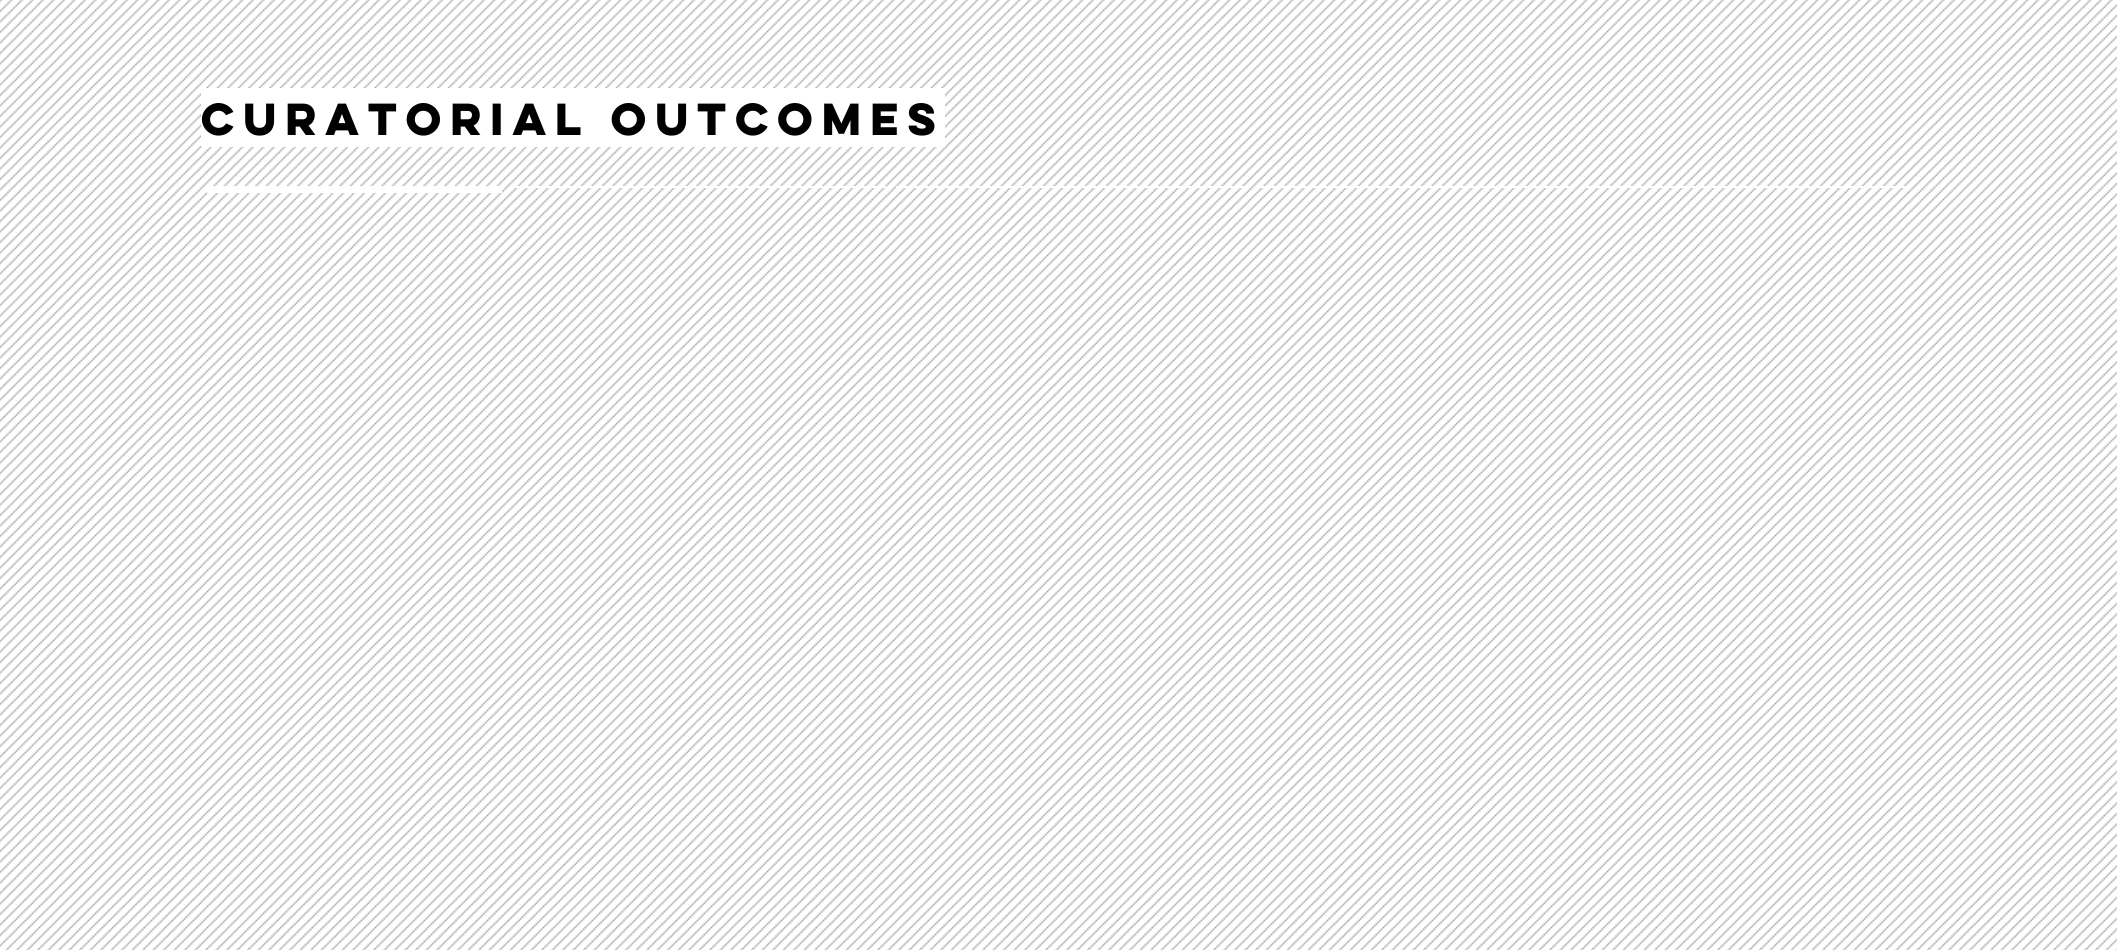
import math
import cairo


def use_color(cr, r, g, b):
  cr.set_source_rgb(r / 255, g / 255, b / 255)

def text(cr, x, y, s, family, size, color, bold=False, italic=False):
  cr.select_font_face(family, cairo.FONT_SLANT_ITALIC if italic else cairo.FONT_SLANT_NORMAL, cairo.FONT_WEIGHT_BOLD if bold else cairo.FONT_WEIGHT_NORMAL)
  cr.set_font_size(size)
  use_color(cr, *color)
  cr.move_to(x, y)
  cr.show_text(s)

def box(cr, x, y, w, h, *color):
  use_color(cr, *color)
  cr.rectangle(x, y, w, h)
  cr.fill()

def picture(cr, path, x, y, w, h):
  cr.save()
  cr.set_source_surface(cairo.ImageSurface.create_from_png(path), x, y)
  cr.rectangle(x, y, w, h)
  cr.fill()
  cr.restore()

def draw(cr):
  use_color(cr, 255, 255, 255)
  cr.paint()
  picture(cr, "img_01.png", 0, 0, 2117, 950)
  box(cr, 201, 88, 744, 59, 255, 255, 255)
  box(cr, 207, 186, 295, 7, 255, 255, 255)
  box(cr, 513, 186, 373, 2, 255, 255, 255)
  box(cr, 896, 186, 350, 2, 255, 255, 255)
  box(cr, 1257, 186, 315, 2, 255, 255, 255)
  box(cr, 1582, 186, 329, 2, 255, 255, 255)
  text(cr, 201, 135, "CURATORIAL OUTCOMES", "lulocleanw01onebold", 40.25, (0, 0, 0), bold=True)


surface = cairo.ImageSurface(cairo.FORMAT_RGB24, 2117, 950)
cr = cairo.Context(surface)
options = cairo.FontOptions()
options.set_hint_metrics(cairo.HINT_METRICS_OFF)
options.set_hint_style(cairo.HINT_STYLE_NONE)
cr.set_font_options(options)
cr.set_miter_limit(4)
draw(cr)
surface.write_to_png("out.png")
